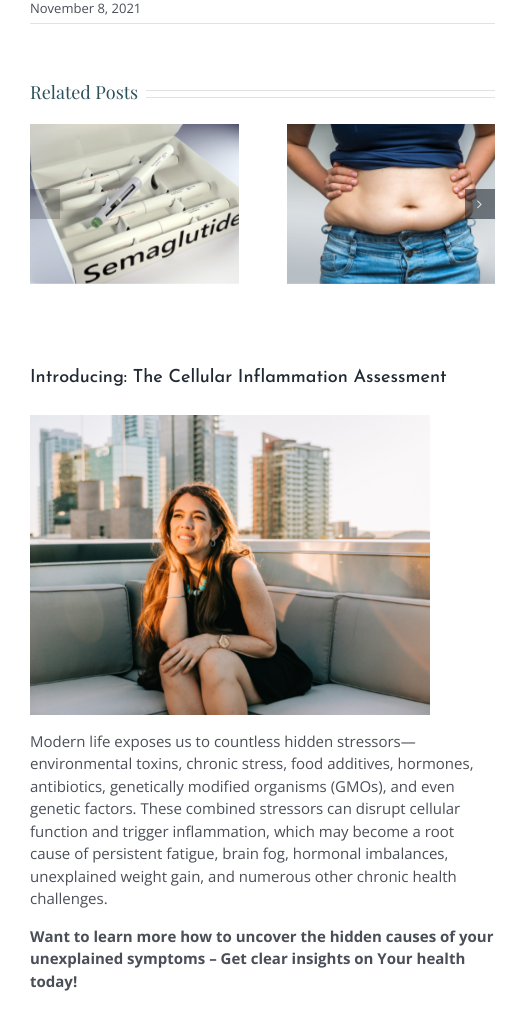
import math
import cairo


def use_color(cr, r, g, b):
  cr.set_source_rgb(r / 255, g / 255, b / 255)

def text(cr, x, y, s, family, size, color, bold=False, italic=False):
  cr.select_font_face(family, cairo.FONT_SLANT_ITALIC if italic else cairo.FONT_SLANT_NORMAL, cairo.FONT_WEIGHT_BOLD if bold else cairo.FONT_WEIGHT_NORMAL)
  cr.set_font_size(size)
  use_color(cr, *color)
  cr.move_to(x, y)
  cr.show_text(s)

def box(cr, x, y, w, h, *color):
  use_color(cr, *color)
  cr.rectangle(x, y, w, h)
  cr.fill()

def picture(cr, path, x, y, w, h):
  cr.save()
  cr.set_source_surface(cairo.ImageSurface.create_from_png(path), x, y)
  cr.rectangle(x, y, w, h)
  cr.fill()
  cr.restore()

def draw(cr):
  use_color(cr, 255, 255, 255)
  cr.paint()
  box(cr, 30, 23, 465, 1, 226, 226, 226)
  box(cr, 146, 90, 349, 1, 226, 226, 226)
  box(cr, 146, 97, 349, 1, 226, 226, 226)
  picture(cr, "img_01.png", 30, 124, 209, 160)
  picture(cr, "img_02.png", 287, 124, 208, 160)
  cr.set_source_rgba(0.114, 0.141, 0.176, 0.24)
  cr.rectangle(30, 189, 30, 30)
  cr.fill()
  picture(cr, "img_03.png", 42, 200, 5, 8)
  cr.set_source_rgba(0.114, 0.141, 0.176, 0.56)
  cr.rectangle(465, 189, 30, 30)
  cr.fill()
  picture(cr, "img_04.png", 477, 200, 5, 9)
  picture(cr, "img_05.png", 30, 415, 400, 300)
  text(cr, 30, 13, "November 8, 2021", "Open Sans", 13, (74, 78, 87))
  text(cr, 30, 99, "Related Posts", "Playfair Display", 18, (42, 80, 90))
  text(cr, 30, 382, "Introducing: The Cellular Inflammation Assessment", "Josefin Sans Medium", 18, (33, 41, 52))
  text(cr, 30, 747, "Modern life exposes us to countless hidden stressors—", "Open Sans", 15, (74, 78, 87))
  text(cr, 30, 769, "environmental toxins, chronic stress, food additives, hormones,", "Open Sans", 15, (74, 78, 87))
  text(cr, 30, 792, "antibiotics, genetically modified organisms (GMOs), and even", "Open Sans", 15, (74, 78, 87))
  text(cr, 30, 814, "genetic factors. These combined stressors can disrupt cellular", "Open Sans", 15, (74, 78, 87))
  text(cr, 30, 837, "function and trigger inflammation, which may become a root", "Open Sans", 15, (74, 78, 87))
  text(cr, 30, 859, "cause of persistent fatigue, brain fog, hormonal imbalances,", "Open Sans", 15, (74, 78, 87))
  text(cr, 30, 882, "unexplained weight gain, and numerous other chronic health", "Open Sans", 15, (74, 78, 87))
  text(cr, 30, 904, "challenges.", "Open Sans", 15, (74, 78, 87))
  text(cr, 30, 942, "Want to learn more how to uncover the hidden causes of your", "Open Sans", 15, (74, 78, 87), bold=True)
  text(cr, 30, 964, "unexplained symptoms – Get clear insights on Your health", "Open Sans", 15, (74, 78, 87), bold=True)
  text(cr, 30, 987, "today!", "Open Sans", 15, (74, 78, 87), bold=True)


surface = cairo.ImageSurface(cairo.FORMAT_RGB24, 525, 1021)
cr = cairo.Context(surface)
options = cairo.FontOptions()
options.set_hint_metrics(cairo.HINT_METRICS_OFF)
options.set_hint_style(cairo.HINT_STYLE_NONE)
cr.set_font_options(options)
cr.set_miter_limit(4)
draw(cr)
surface.write_to_png("out.png")
